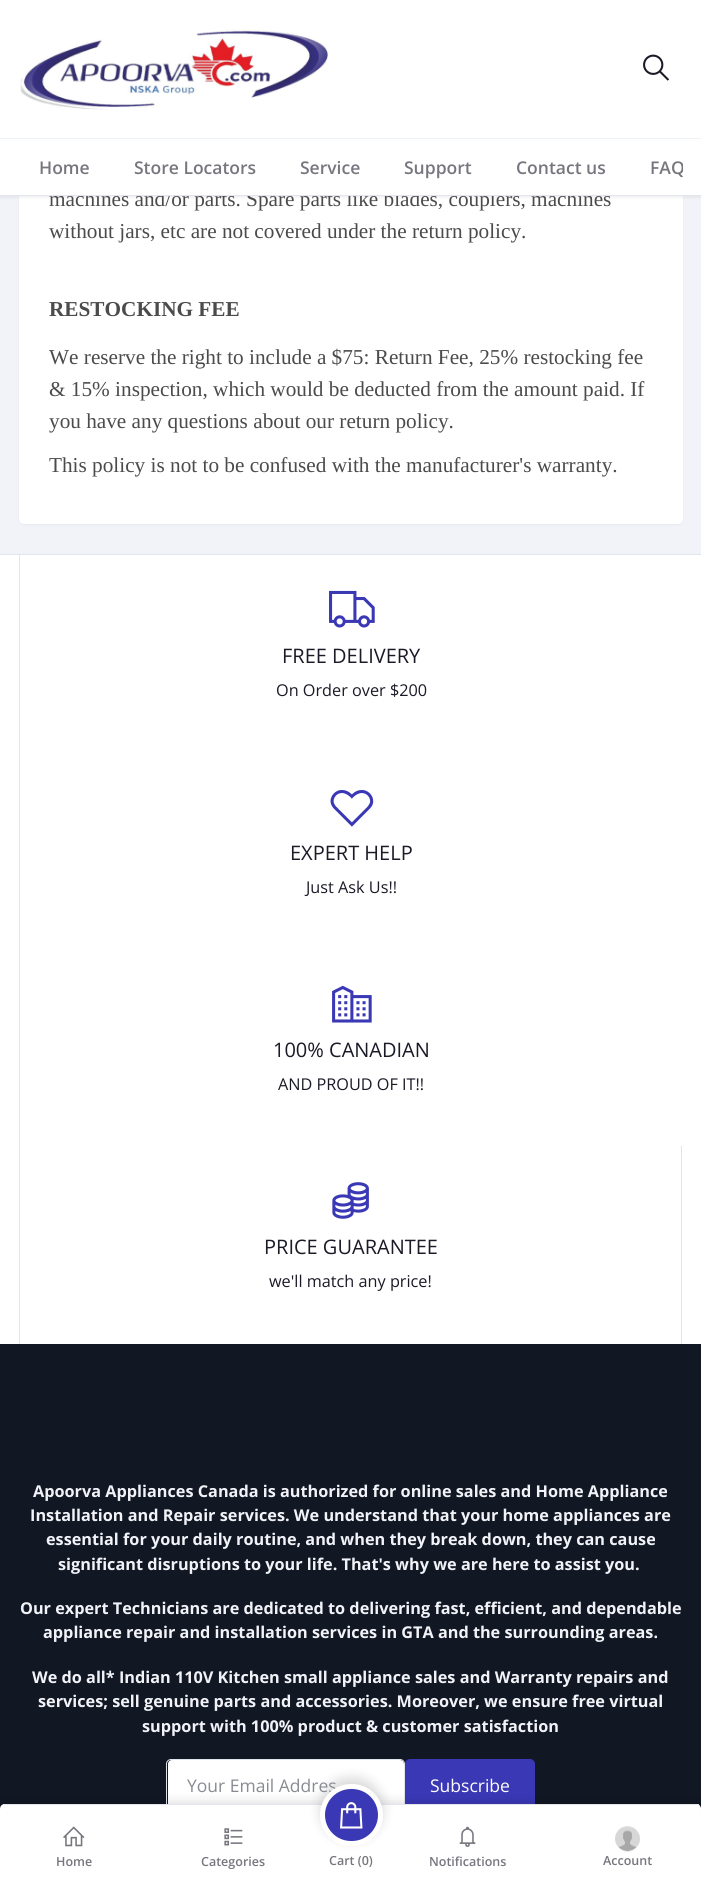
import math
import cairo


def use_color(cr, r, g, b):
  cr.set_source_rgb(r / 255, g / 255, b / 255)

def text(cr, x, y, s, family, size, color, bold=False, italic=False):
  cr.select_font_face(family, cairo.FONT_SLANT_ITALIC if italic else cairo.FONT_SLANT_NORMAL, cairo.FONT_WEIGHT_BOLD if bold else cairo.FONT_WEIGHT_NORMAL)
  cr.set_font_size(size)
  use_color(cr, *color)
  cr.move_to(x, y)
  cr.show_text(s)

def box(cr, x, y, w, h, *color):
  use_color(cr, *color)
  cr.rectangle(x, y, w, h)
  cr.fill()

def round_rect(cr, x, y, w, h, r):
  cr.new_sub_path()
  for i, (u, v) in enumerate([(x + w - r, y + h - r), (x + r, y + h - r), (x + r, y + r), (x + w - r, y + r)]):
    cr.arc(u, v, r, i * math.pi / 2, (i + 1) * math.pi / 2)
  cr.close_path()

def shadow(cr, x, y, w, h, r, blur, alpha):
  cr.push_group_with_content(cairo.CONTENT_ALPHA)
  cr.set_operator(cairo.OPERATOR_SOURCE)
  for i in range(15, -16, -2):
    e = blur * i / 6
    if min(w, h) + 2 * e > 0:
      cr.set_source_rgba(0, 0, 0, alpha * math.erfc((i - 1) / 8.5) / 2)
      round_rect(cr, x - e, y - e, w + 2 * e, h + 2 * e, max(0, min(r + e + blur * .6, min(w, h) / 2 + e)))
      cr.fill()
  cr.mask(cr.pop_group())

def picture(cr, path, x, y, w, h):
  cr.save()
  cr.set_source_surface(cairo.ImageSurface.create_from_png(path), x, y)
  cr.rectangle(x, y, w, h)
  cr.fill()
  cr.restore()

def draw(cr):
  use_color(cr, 242, 243, 248)
  cr.paint()
  use_color(cr, 0, 0, 0)
  shadow(cr, 19, -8, 664, 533, 5, 1, 0.05)
  use_color(cr, 255, 255, 255)
  round_rect(cr, 19, -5, 664, 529, 5)
  cr.fill()
  use_color(cr, 0, 0, 0)
  shadow(cr, 0, 1, 701, 197, 0, 1, 0.05)
  box(cr, 0, 555, 701, 789, 255, 255, 255)
  box(cr, 0, 554, 701, 1, 226, 229, 236)
  box(cr, 19, 555, 1, 789, 226, 229, 236)
  picture(cr, "img_03.png", 329, 590, 46, 38)
  picture(cr, "img_04.png", 330, 790, 44, 37)
  picture(cr, "img_05.png", 332, 985, 40, 38)
  box(cr, 681, 1146, 1, 198, 226, 229, 236)
  picture(cr, "img_06.png", 332, 1182, 37, 37)
  box(cr, 0, 1344, 701, 465, 17, 23, 35)
  use_color(cr, 255, 255, 255)
  round_rect(cr, 168, 1760, 236, 50, 4)
  cr.fill()
  round_rect(cr, 166.5, 1759.5, 238, 51, 4.5)
  use_color(cr, 226, 229, 236)
  cr.set_line_width(1)
  cr.stroke()
  use_color(cr, 58, 56, 181)
  round_rect(cr, 405.5, 1759.5, 129, 51, 4.5)
  cr.fill_preserve()
  cr.stroke()
  use_color(cr, 0, 0, 0)
  shadow(cr, 0, 1803, 701, 77, 5, 6, 0.15)
  use_color(cr, 255, 255, 255)
  cr.new_path()
  cr.move_to(5, 1804)
  cr.line_to(696, 1804)
  cr.curve_to(699, 1804, 701, 1806, 701, 1809)
  cr.line_to(701, 1881)
  cr.line_to(0, 1881)
  cr.line_to(0, 1809)
  cr.curve_to(0, 1806, 2, 1804, 5, 1804)
  cr.close_path()
  cr.fill()
  box(cr, 3, 1804, 696, 1, 226, 229, 236)
  picture(cr, "img_07.png", 63, 1826, 22, 21)
  picture(cr, "img_08.png", 224, 1828, 19, 18)
  use_color(cr, 0, 0, 0)
  shadow(cr, 320, 1778, 63, 62, 31, 6, 0.15)
  picture(cr, "img_10.png", 459, 1826, 17, 21)
  picture(cr, "img_11.png", 615, 1826, 25, 26)
  text(cr, 49, 206, "machines and/or parts. Spare parts like blades, couplers, machines", "Liberation Serif", 21.25, (75, 75, 75))
  box(cr, 0, 0, 701, 195, 255, 255, 255)
  picture(cr, "img_02.png", 643, 54, 27, 27)
  picture(cr, "img_01.png", 20, 28, 308, 82)
  cr.save()
  cr.rectangle(19, 144, 664, 46)
  cr.clip()
  text(cr, 650, 174, "FAQ", "Open Sans SemiBold", 17.5, (118, 118, 126))
  cr.restore()
  text(cr, 516, 174, "Contact us", "Open Sans SemiBold", 17.5, (118, 118, 126))
  text(cr, 404, 174, "Support", "Open Sans SemiBold", 17.5, (118, 118, 126))
  text(cr, 300, 174, "Service", "Open Sans SemiBold", 17.5, (118, 118, 126))
  text(cr, 134, 174, "Store Locators", "Open Sans SemiBold", 17.5, (118, 118, 126))
  text(cr, 39, 174, "Home", "Open Sans SemiBold", 17.5, (118, 118, 126))
  box(cr, 0, 138, 701, 1, 237, 242, 247)
  box(cr, 0, 195, 701, 1, 226, 229, 236)
  text(cr, 49, 238, "without jars, etc are not covered under the return policy.", "Liberation Serif", 21.25, (75, 75, 75))
  text(cr, 49, 316, "RESTOCKING FEE", "Liberation Serif", 21.25, (75, 75, 75), bold=True)
  text(cr, 49, 364, "We reserve the right to include a $75: Return Fee, 25% restocking fee", "Liberation Serif", 21.25, (75, 75, 75))
  text(cr, 49, 396, "& 15% inspection, which would be deducted from the amount paid. If", "Liberation Serif", 21.25, (75, 75, 75))
  text(cr, 49, 428, "you have any questions about our return policy.", "Liberation Serif", 21.25, (75, 75, 75))
  text(cr, 49, 472, "This policy is not to be confused with the manufacturer's warranty.", "Liberation Serif", 21.25, (75, 75, 75))
  text(cr, 282, 663, "FREE DELIVERY", "Open Sans", 20, (27, 27, 40))
  text(cr, 276, 696, "On Order over $200", "Open Sans", 16.25, (27, 27, 40))
  text(cr, 290, 860, "EXPERT HELP", "Open Sans", 20, (27, 27, 40))
  text(cr, 306, 893, "Just Ask Us!!", "Open Sans", 16.25, (27, 27, 40))
  text(cr, 273, 1057, "100% CANADIAN", "Open Sans", 20, (27, 27, 40))
  text(cr, 278, 1090, "AND PROUD OF IT!!", "Open Sans", 16.25, (27, 27, 40))
  text(cr, 264, 1254, "PRICE GUARANTEE", "Open Sans", 20, (27, 27, 40))
  text(cr, 269, 1287, "we'll match any price!", "Open Sans", 16.25, (27, 27, 40))
  text(cr, 33, 1497, "Apoorva Appliances Canada is authorized for online sales and Home Appliance", "Open Sans", 16.25, (242, 243, 248), bold=True)
  text(cr, 30, 1521, "Installation and Repair services. We understand that your home appliances are", "Open Sans", 16.25, (242, 243, 248), bold=True)
  text(cr, 46, 1545, "essential for your daily routine, and when they break down, they can cause", "Open Sans", 16.25, (242, 243, 248), bold=True)
  text(cr, 58, 1570, "significant disruptions to your life. That's why we are here to assist you.", "Open Sans", 16.25, (242, 243, 248), bold=True)
  text(cr, 20, 1614, "Our expert Technicians are dedicated to delivering fast, efficient, and dependable", "Open Sans", 16.25, (242, 243, 248), bold=True)
  text(cr, 43, 1638, "appliance repair and installation services in GTA and the surrounding areas.", "Open Sans", 16.25, (242, 243, 248), bold=True)
  text(cr, 32, 1683, "We do all* Indian 110V Kitchen small appliance sales and Warranty repairs and", "Open Sans", 16.25, (242, 243, 248), bold=True)
  text(cr, 38, 1707, "services; sell genuine parts and accessories. Moreover, we ensure free virtual", "Open Sans", 16.25, (242, 243, 248), bold=True)
  text(cr, 142, 1732, "support with 100% product & customer satisfaction", "Open Sans", 16.25, (242, 243, 248), bold=True)
  text(cr, 187, 1792, "Your Email Addres", "Open Sans", 17.5, (137, 139, 146))
  text(cr, 430, 1792, "Subscribe", "Open Sans", 17.5, (255, 255, 255))
  text(cr, 56, 1866, "Home", "Open Sans SemiBold", 12.5, (118, 118, 126))
  text(cr, 201, 1866, "Categories", "Open Sans SemiBold", 12.5, (118, 118, 126))
  use_color(cr, 58, 56, 181)
  round_rect(cr, 322.5, 1786.5, 58, 57, 28.5)
  cr.fill_preserve()
  use_color(cr, 255, 255, 255)
  cr.set_line_width(5)
  cr.stroke()
  picture(cr, "img_09.png", 340, 1802, 23, 27)
  text(cr, 329, 1865, "Cart (0)", "Open Sans SemiBold", 12.5, (118, 118, 126))
  text(cr, 429, 1866, "Notifications", "Open Sans SemiBold", 12.5, (118, 118, 126))
  text(cr, 603, 1865, "Account", "Open Sans SemiBold", 12.5, (118, 118, 126))


surface = cairo.ImageSurface(cairo.FORMAT_RGB24, 701, 1881)
cr = cairo.Context(surface)
options = cairo.FontOptions()
options.set_hint_metrics(cairo.HINT_METRICS_OFF)
options.set_hint_style(cairo.HINT_STYLE_NONE)
cr.set_font_options(options)
cr.set_miter_limit(4)
draw(cr)
surface.write_to_png("out.png")
